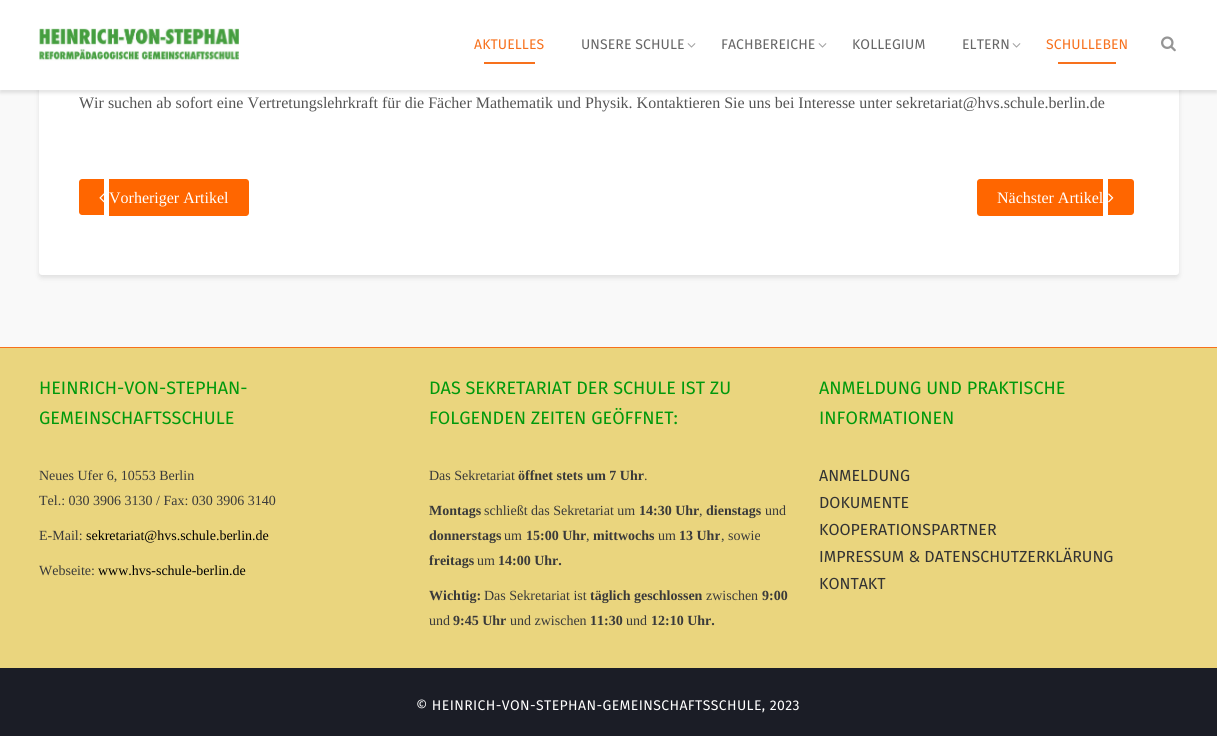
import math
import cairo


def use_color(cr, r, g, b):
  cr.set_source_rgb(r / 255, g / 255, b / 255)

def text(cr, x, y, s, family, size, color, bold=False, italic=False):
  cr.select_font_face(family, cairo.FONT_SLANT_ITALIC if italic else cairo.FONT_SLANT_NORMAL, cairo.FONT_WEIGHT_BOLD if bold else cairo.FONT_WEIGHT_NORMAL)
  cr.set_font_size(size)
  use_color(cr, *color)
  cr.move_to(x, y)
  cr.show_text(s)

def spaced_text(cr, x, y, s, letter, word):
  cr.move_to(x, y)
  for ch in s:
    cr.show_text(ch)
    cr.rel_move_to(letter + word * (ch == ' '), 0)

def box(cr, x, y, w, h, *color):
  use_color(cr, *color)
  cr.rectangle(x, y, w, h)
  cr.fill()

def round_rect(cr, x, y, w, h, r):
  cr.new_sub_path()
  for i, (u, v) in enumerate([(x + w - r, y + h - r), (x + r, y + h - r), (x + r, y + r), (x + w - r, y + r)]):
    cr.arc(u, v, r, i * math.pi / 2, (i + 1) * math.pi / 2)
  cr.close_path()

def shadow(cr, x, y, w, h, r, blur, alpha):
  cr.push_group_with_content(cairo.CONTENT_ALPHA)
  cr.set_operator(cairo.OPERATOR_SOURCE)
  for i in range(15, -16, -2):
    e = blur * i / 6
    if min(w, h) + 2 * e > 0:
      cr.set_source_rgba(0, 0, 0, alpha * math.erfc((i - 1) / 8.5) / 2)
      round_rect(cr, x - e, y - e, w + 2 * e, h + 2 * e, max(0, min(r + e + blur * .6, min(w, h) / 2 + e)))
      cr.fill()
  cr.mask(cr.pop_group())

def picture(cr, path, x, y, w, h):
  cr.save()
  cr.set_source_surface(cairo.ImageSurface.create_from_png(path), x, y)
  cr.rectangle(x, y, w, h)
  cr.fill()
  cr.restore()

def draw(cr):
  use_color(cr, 249, 249, 249)
  cr.paint()
  use_color(cr, 0, 0, 0)
  shadow(cr, 39, -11, 1140, 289, 3, 2.5, 0.1)
  use_color(cr, 255, 255, 255)
  round_rect(cr, 39, -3, 1140, 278, 3)
  cr.fill()
  use_color(cr, 0, 0, 0)
  shadow(cr, 0, 3, 1217, 90, 0, 1.5, 0.1)
  box(cr, 0, 0, 1217, 90, 255, 255, 255)
  picture(cr, "img_01.png", 39, 28, 200, 33)
  box(cr, 484, 62, 51, 2, 247, 113, 29)
  picture(cr, "img_02.png", 687, 43, 9, 5)
  picture(cr, "img_02.png", 818, 43, 9, 5)
  picture(cr, "img_02.png", 1012, 43, 9, 5)
  box(cr, 1058, 62, 58, 2, 247, 113, 29)
  picture(cr, "img_03.png", 1161, 36, 15, 16)
  use_color(cr, 255, 102, 0)
  cr.new_path()
  cr.move_to(82, 179)
  cr.line_to(104, 179)
  cr.line_to(104, 215)
  cr.line_to(82, 215)
  cr.curve_to(80.5, 215, 79, 213.5, 79, 212)
  cr.line_to(79, 182)
  cr.curve_to(79, 180.5, 80.5, 179, 82, 179)
  cr.close_path()
  cr.fill()
  picture(cr, "img_04.png", 99, 193, 5, 10)
  cr.new_path()
  cr.move_to(109, 179)
  cr.line_to(246, 179)
  cr.curve_to(247.5, 179, 249, 180.5, 249, 182)
  cr.line_to(249, 213)
  cr.curve_to(249, 214.5, 247.5, 216, 246, 216)
  cr.line_to(109, 216)
  cr.close_path()
  cr.fill()
  cr.new_path()
  cr.move_to(980, 179)
  cr.line_to(1103, 179)
  cr.line_to(1103, 216)
  cr.line_to(980, 216)
  cr.curve_to(978.5, 216, 977, 214.5, 977, 213)
  cr.line_to(977, 182)
  cr.curve_to(977, 180.5, 978.5, 179, 980, 179)
  cr.close_path()
  cr.fill()
  cr.new_path()
  cr.move_to(1108, 179)
  cr.line_to(1131, 179)
  cr.curve_to(1132.5, 179, 1134, 180.5, 1134, 182)
  cr.line_to(1134, 212)
  cr.curve_to(1134, 213.5, 1132.5, 215, 1131, 215)
  cr.line_to(1108, 215)
  cr.close_path()
  cr.fill()
  picture(cr, "img_05.png", 1108, 193, 6, 10)
  box(cr, 0, 348, 1217, 320, 234, 213, 126)
  box(cr, 0, 347, 1217, 1, 247, 113, 29)
  box(cr, 0, 668, 1217, 68, 27, 29, 38)
  cr.select_font_face("Fira Sans")
  cr.set_font_size(14)
  use_color(cr, 247, 113, 29)
  spaced_text(cr, 474, 49, "AKTUELLES", 0.1, 0)
  use_color(cr, 102, 102, 102)
  spaced_text(cr, 581, 49, "UNSERE SCHULE", 0.1, 0)
  spaced_text(cr, 721, 49, "FACHBEREICHE", 0.1, 0)
  spaced_text(cr, 852, 49, "KOLLEGIUM", 0.1, 0)
  spaced_text(cr, 962, 49, "ELTERN", 0.1, 0)
  use_color(cr, 247, 113, 29)
  spaced_text(cr, 1046, 49, "SCHULLEBEN", 0.1, 0)
  text(cr, 79, 108, "Wir suchen ab sofort eine Vertretungslehrkraft für die Fächer Mathematik und Physik. Kontaktieren Sie uns bei Interesse unter sekretariat@hvs.schule.berlin.de", "Liberation Serif", 16, (84, 84, 84))
  text(cr, 109, 203, "Vorheriger Artikel", "Liberation Serif", 16, (255, 255, 255))
  text(cr, 997, 203, "Nächster Artikel", "Liberation Serif", 16, (255, 255, 255))
  text(cr, 39, 394, "HEINRICH-VON-STEPHAN-", "Fira Sans", 18, (0, 153, 12))
  text(cr, 39, 424, "GEMEINSCHAFTSSCHULE", "Fira Sans", 18, (0, 153, 12))
  text(cr, 39, 480, "Neues Ufer 6, 10553 Berlin", "Liberation Serif", 14, (58, 58, 58))
  text(cr, 39, 505, "Tel.: 030 3906 3130 / Fax: 030 3906 3140", "Liberation Serif", 14, (58, 58, 58))
  text(cr, 39, 540, "E-Mail:", "Liberation Serif", 14, (58, 58, 58))
  text(cr, 86, 540, "sekretariat@hvs.schule.berlin.de", "Liberation Serif", 14, (0, 0, 0))
  text(cr, 39, 575, "Webseite:", "Liberation Serif", 14, (58, 58, 58))
  text(cr, 98, 575, "www.hvs-schule-berlin.de", "Liberation Serif", 14, (0, 0, 0))
  text(cr, 429, 394, "DAS SEKRETARIAT DER SCHULE IST ZU", "Fira Sans", 18, (0, 153, 12))
  text(cr, 429, 424, "FOLGENDEN ZEITEN GEÖFFNET:", "Fira Sans", 18, (0, 153, 12))
  text(cr, 429, 480, "Das Sekretariat", "Liberation Serif", 14, (58, 58, 58))
  text(cr, 518, 480, "öffnet stets um 7 Uhr", "Liberation Serif", 14, (58, 58, 58), bold=True)
  text(cr, 644, 480, ".", "Liberation Serif", 14, (58, 58, 58))
  text(cr, 429, 515, "Montags", "Liberation Serif", 14, (58, 58, 58), bold=True)
  text(cr, 484, 515, "schließt das Sekretariat um", "Liberation Serif", 14, (58, 58, 58))
  text(cr, 639, 515, "14:30 Uhr", "Liberation Serif", 14, (58, 58, 58), bold=True)
  text(cr, 699, 515, ",", "Liberation Serif", 14, (58, 58, 58))
  text(cr, 706, 515, "dienstags", "Liberation Serif", 14, (58, 58, 58), bold=True)
  text(cr, 765, 515, "und", "Liberation Serif", 14, (58, 58, 58))
  text(cr, 429, 540, "donnerstags", "Liberation Serif", 14, (58, 58, 58), bold=True)
  text(cr, 504, 540, "um", "Liberation Serif", 14, (58, 58, 58))
  text(cr, 526, 540, "15:00 Uhr", "Liberation Serif", 14, (58, 58, 58), bold=True)
  text(cr, 586, 540, ",", "Liberation Serif", 14, (58, 58, 58))
  text(cr, 593, 540, "mittwochs", "Liberation Serif", 14, (58, 58, 58), bold=True)
  text(cr, 658, 540, "um", "Liberation Serif", 14, (58, 58, 58))
  text(cr, 679, 540, "13 Uhr", "Liberation Serif", 14, (58, 58, 58), bold=True)
  text(cr, 721, 540, ", sowie", "Liberation Serif", 14, (58, 58, 58))
  text(cr, 429, 565, "freitags", "Liberation Serif", 14, (58, 58, 58), bold=True)
  text(cr, 477, 565, "um", "Liberation Serif", 14, (58, 58, 58))
  text(cr, 498, 565, "14:00 Uhr.", "Liberation Serif", 14, (58, 58, 58), bold=True)
  text(cr, 429, 600, "Wichtig:", "Liberation Serif", 14, (58, 58, 58), bold=True)
  text(cr, 484, 600, "Das Sekretariat ist", "Liberation Serif", 14, (58, 58, 58))
  text(cr, 590, 600, "täglich geschlossen", "Liberation Serif", 14, (58, 58, 58), bold=True)
  text(cr, 706, 600, "zwischen", "Liberation Serif", 14, (58, 58, 58))
  text(cr, 762, 600, "9:00", "Liberation Serif", 14, (58, 58, 58), bold=True)
  text(cr, 429, 625, "und", "Liberation Serif", 14, (58, 58, 58))
  text(cr, 453, 625, "9:45 Uhr", "Liberation Serif", 14, (58, 58, 58), bold=True)
  text(cr, 510, 625, "und zwischen", "Liberation Serif", 14, (58, 58, 58))
  text(cr, 590, 625, "11:30", "Liberation Serif", 14, (58, 58, 58), bold=True)
  text(cr, 626, 625, "und", "Liberation Serif", 14, (58, 58, 58))
  text(cr, 651, 625, "12:10 Uhr.", "Liberation Serif", 14, (58, 58, 58), bold=True)
  text(cr, 819, 394, "ANMELDUNG UND PRAKTISCHE", "Fira Sans", 18, (0, 153, 12))
  text(cr, 819, 424, "INFORMATIONEN", "Fira Sans", 18, (0, 153, 12))
  text(cr, 819, 481, "ANMELDUNG", "Fira Sans", 16, (51, 51, 51))
  text(cr, 819, 508, "DOKUMENTE", "Fira Sans", 16, (51, 51, 51))
  text(cr, 819, 535, "KOOPERATIONSPARTNER", "Fira Sans", 16, (51, 51, 51))
  text(cr, 819, 562, "IMPRESSUM & DATENSCHUTZERKLÄRUNG", "Fira Sans", 16, (51, 51, 51))
  text(cr, 819, 589, "KONTAKT", "Fira Sans", 16, (51, 51, 51))
  cr.set_font_size(14)
  use_color(cr, 255, 255, 255)
  spaced_text(cr, 416, 710, "© HEINRICH-VON-STEPHAN-GEMEINSCHAFTSSCHULE, 2023", 0.4, 0)


surface = cairo.ImageSurface(cairo.FORMAT_RGB24, 1217, 736)
cr = cairo.Context(surface)
options = cairo.FontOptions()
options.set_hint_metrics(cairo.HINT_METRICS_OFF)
options.set_hint_style(cairo.HINT_STYLE_NONE)
cr.set_font_options(options)
cr.set_miter_limit(4)
draw(cr)
surface.write_to_png("out.png")
